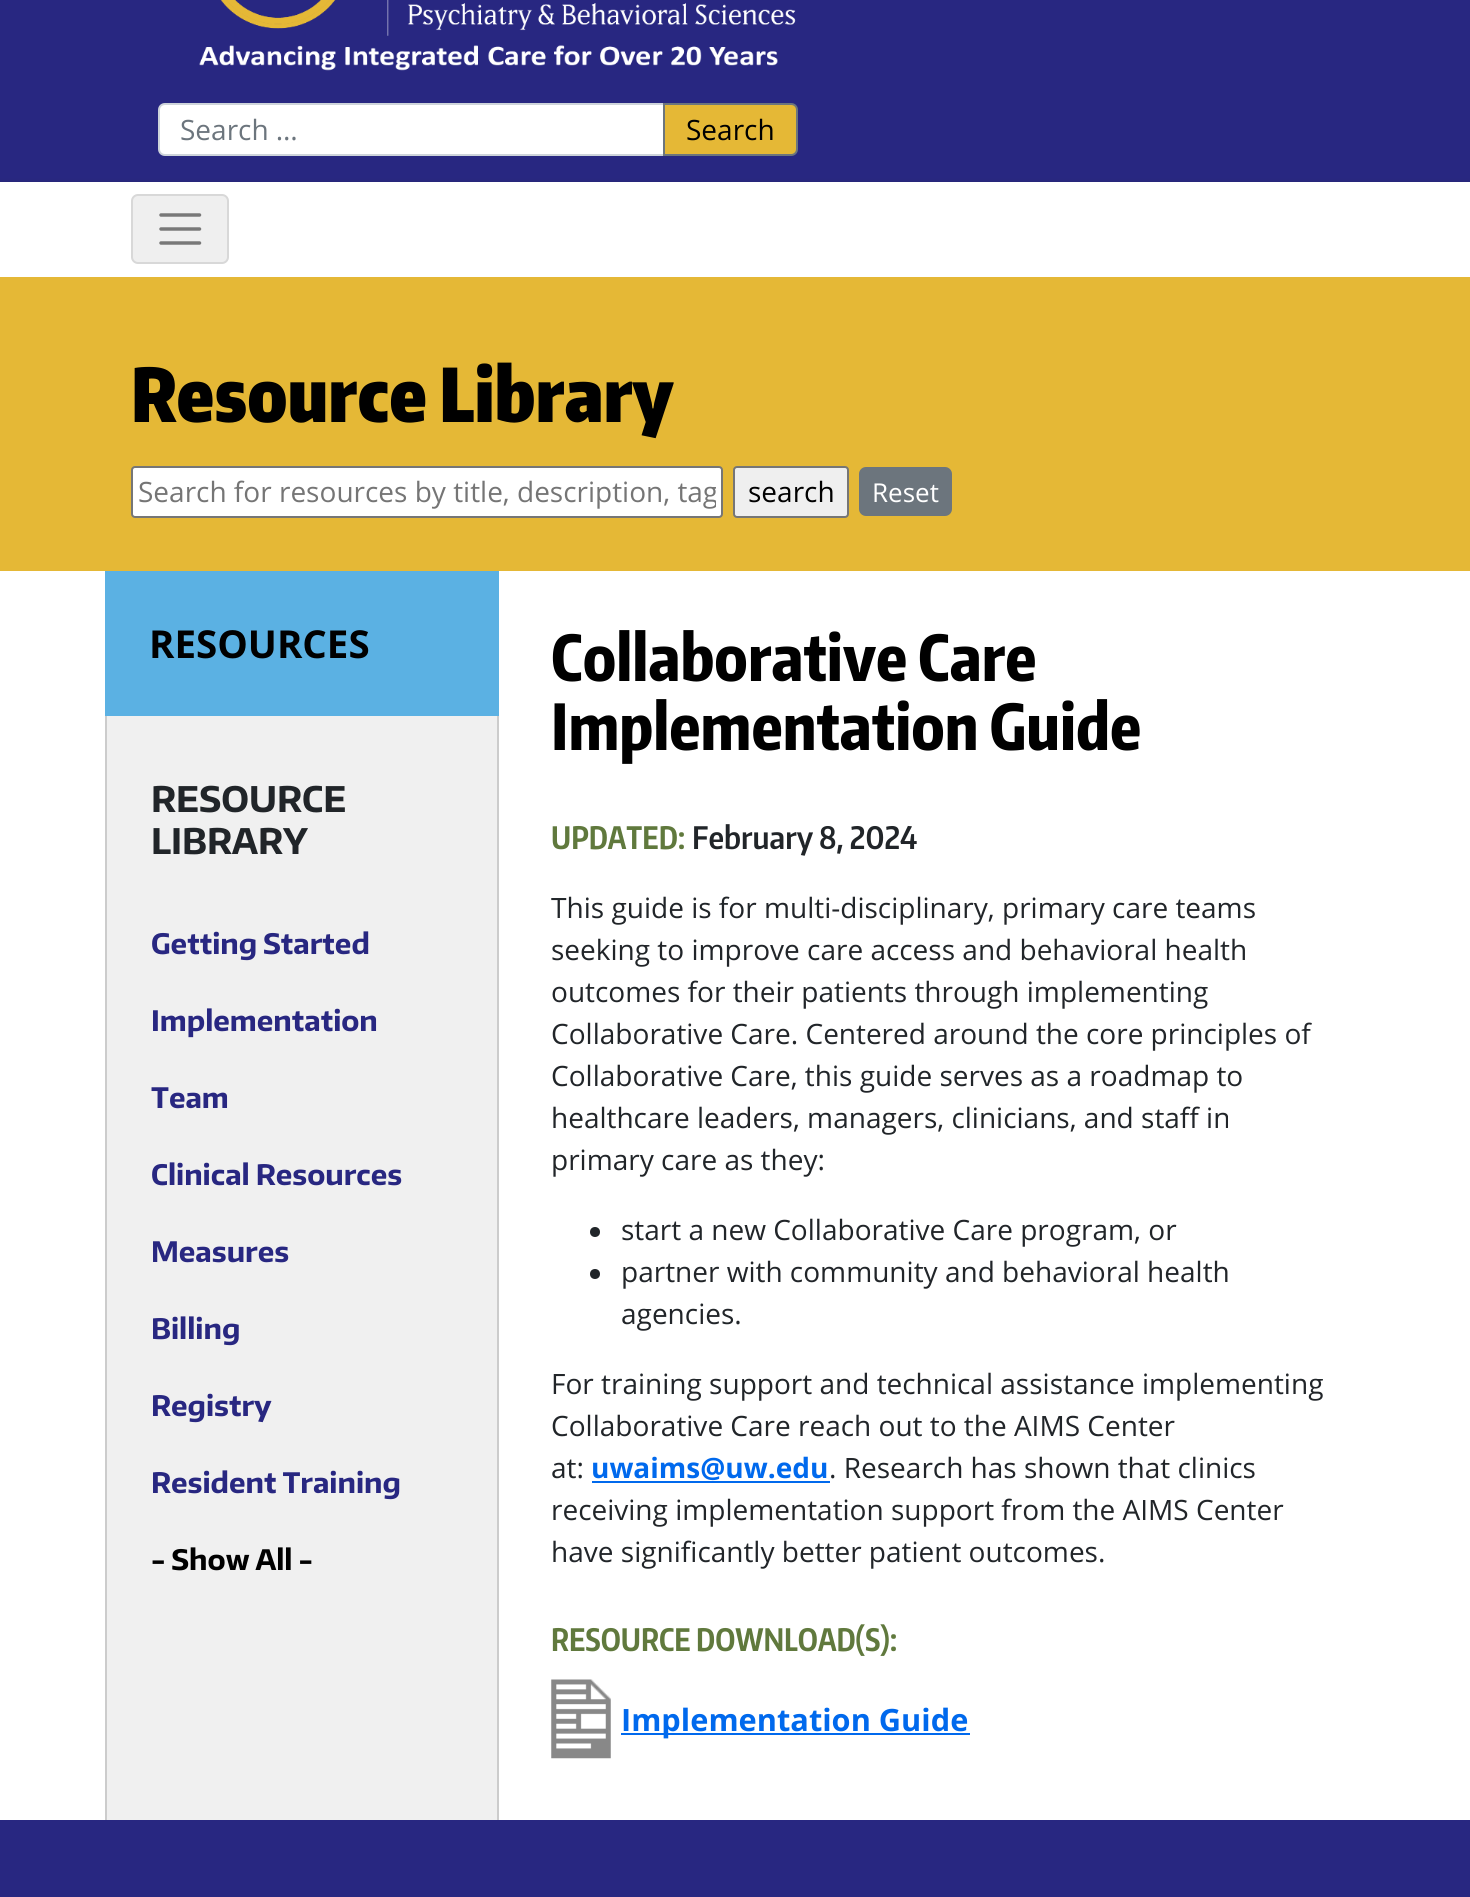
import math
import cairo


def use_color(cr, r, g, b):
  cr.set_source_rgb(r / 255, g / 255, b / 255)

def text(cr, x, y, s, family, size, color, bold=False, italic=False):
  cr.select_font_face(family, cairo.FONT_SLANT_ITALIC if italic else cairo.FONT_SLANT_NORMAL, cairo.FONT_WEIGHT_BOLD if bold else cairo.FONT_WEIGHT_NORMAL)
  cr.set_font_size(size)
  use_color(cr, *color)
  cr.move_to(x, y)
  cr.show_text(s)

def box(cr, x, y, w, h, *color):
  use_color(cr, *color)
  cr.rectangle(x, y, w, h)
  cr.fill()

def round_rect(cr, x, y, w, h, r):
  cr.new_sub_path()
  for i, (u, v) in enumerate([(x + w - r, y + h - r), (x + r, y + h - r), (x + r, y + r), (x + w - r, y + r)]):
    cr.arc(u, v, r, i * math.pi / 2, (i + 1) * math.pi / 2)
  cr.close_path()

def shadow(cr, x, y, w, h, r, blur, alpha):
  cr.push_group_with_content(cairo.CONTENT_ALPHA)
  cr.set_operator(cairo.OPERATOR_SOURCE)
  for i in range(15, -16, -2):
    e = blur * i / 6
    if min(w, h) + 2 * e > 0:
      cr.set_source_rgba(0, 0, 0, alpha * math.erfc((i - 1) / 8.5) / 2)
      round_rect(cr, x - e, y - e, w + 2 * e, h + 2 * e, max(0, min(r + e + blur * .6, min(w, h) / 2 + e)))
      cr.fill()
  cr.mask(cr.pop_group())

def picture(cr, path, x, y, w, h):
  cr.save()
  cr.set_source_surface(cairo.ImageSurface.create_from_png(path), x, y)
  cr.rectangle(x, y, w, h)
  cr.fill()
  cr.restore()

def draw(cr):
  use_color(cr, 255, 255, 255)
  cr.paint()
  box(cr, 0, 0, 1470, 182, 40, 39, 129)
  picture(cr, "img_01.png", 199, 0, 597, 71)
  use_color(cr, 255, 255, 255)
  cr.new_path()
  cr.move_to(165, 104)
  cr.line_to(664, 104)
  cr.line_to(664, 155)
  cr.line_to(165, 155)
  cr.curve_to(161.5, 155, 159, 152.5, 159, 149)
  cr.line_to(159, 110)
  cr.curve_to(159, 106.5, 161.5, 104, 165, 104)
  cr.close_path()
  cr.fill_preserve()
  use_color(cr, 206, 212, 218)
  cr.stroke()
  use_color(cr, 229, 184, 54)
  cr.new_path()
  cr.move_to(664, 104)
  cr.line_to(791, 104)
  cr.curve_to(794.5, 104, 797, 106.5, 797, 110)
  cr.line_to(797, 149)
  cr.curve_to(797, 152.5, 794.5, 155, 791, 155)
  cr.line_to(664, 155)
  cr.close_path()
  cr.fill_preserve()
  use_color(cr, 108, 117, 125)
  cr.stroke()
  use_color(cr, 34, 25, 25)
  shadow(cr, 0, 184, 1470, 94, 0, 2.5, 0.4)
  box(cr, 0, 182, 1470, 95, 255, 255, 255)
  use_color(cr, 239, 239, 239)
  round_rect(cr, 131, 194, 98, 70, 7)
  cr.fill()
  round_rect(cr, 132, 195, 96, 68, 6)
  cr.set_source_rgba(0, 0, 0, 0.1)
  cr.stroke()
  cr.new_path()
  cr.move_to(161, 215)
  cr.line_to(199.5, 215)
  cr.move_to(161, 229)
  cr.line_to(199.5, 229)
  cr.move_to(161, 243)
  cr.line_to(199.5, 243)
  use_color(cr, 120, 120, 120)
  cr.set_line_width(3.5)
  cr.set_line_cap(cairo.LINE_CAP_ROUND)
  cr.stroke()
  box(cr, 0, 277, 1470, 294, 229, 184, 54)
  use_color(cr, 255, 255, 255)
  round_rect(cr, 132, 467, 590, 50, 3)
  cr.fill_preserve()
  use_color(cr, 118, 118, 118)
  cr.set_line_width(2)
  cr.set_line_cap(cairo.LINE_CAP_BUTT)
  cr.stroke()
  use_color(cr, 239, 239, 239)
  round_rect(cr, 734, 467, 114, 50, 3)
  cr.fill_preserve()
  use_color(cr, 118, 118, 118)
  cr.stroke()
  use_color(cr, 108, 117, 125)
  round_rect(cr, 860, 468, 91, 47, 6)
  cr.fill_preserve()
  cr.stroke()
  box(cr, 105, 571, 394, 145, 91, 177, 227)
  box(cr, 107, 716, 390, 1104, 240, 240, 240)
  box(cr, 497, 716, 2, 1104, 204, 204, 204)
  box(cr, 105, 716, 2, 1104, 204, 204, 204)
  use_color(cr, 33, 37, 41)
  cr.arc(595, 1232, 5, 0, 2 * math.pi)
  cr.fill()
  cr.arc(595, 1274, 5, 0, 2 * math.pi)
  cr.fill()
  box(cr, 592, 1481, 238, 2, 0, 105, 237)
  picture(cr, "img_02.png", 551, 1679, 60, 80)
  box(cr, 621, 1733, 349, 2, 0, 105, 237)
  box(cr, 0, 1820, 1470, 77, 40, 39, 129)
  text(cr, 180, 140, "Search …", "Open Sans", 28, (108, 117, 125))
  text(cr, 686, 140, "Search", "Open Sans", 28, (0, 0, 0))
  text(cr, 131, 422, "Resource Library", "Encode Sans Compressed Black", 73.5, (0, 0, 0))
  cr.save()
  cr.rectangle(138, 473, 578, 38)
  cr.clip()
  text(cr, 138, 502, "Search for resources by title, description, tag", "Open Sans", 28, (117, 117, 117))
  cr.restore()
  text(cr, 748, 502, "search", "Open Sans", 28, (0, 0, 0))
  text(cr, 872, 502, "Reset", "Open Sans", 26, (255, 255, 255))
  text(cr, 149, 658, "RESOURCES", "Open Sans", 38.5, (0, 0, 0), bold=True)
  text(cr, 151, 812, "RESOURCE", "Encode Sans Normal", 35, (33, 37, 41), bold=True)
  text(cr, 151, 854, "LIBRARY", "Encode Sans Normal", 35, (33, 37, 41), bold=True)
  text(cr, 151, 954, "Getting Started", "Encode Sans Normal", 28, (40, 39, 129), bold=True)
  text(cr, 151, 1031, "Implementation", "Encode Sans Normal", 28, (40, 39, 129), bold=True)
  text(cr, 151, 1108, "Team", "Encode Sans Normal", 28, (40, 39, 129), bold=True)
  text(cr, 151, 1185, "Clinical Resources", "Encode Sans Normal", 28, (40, 39, 129), bold=True)
  text(cr, 151, 1262, "Measures", "Encode Sans Normal", 28, (40, 39, 129), bold=True)
  text(cr, 151, 1339, "Billing", "Encode Sans Normal", 28, (40, 39, 129), bold=True)
  text(cr, 151, 1416, "Registry", "Encode Sans Normal", 28, (40, 39, 129), bold=True)
  text(cr, 151, 1493, "Resident Training", "Encode Sans Normal", 28, (40, 39, 129), bold=True)
  text(cr, 151, 1570, "- Show All -", "Encode Sans Normal", 28, (0, 0, 0), bold=True)
  text(cr, 551, 681, "Collaborative Care", "Encode Sans Compressed ExtraBold", 63, (0, 0, 0))
  text(cr, 551, 750, "Implementation Guide", "Encode Sans Compressed ExtraBold", 63, (0, 0, 0))
  text(cr, 551, 849, "UPDATED:", "Encode Sans Compressed", 30.75, (96, 121, 61), bold=True)
  text(cr, 692, 849, "February 8, 2024", "Encode Sans Condensed SemiBold", 30.75, (33, 37, 41))
  text(cr, 551, 918, "This guide is for multi-disciplinary, primary care teams", "Open Sans", 28, (33, 37, 41))
  text(cr, 551, 960, "seeking to improve care access and behavioral health", "Open Sans", 28, (33, 37, 41))
  text(cr, 551, 1002, "outcomes for their patients through implementing", "Open Sans", 28, (33, 37, 41))
  text(cr, 551, 1044, "Collaborative Care. Centered around the core principles of", "Open Sans", 28, (33, 37, 41))
  text(cr, 551, 1086, "Collaborative Care, this guide serves as a roadmap to", "Open Sans", 28, (33, 37, 41))
  text(cr, 551, 1128, "healthcare leaders, managers, clinicians, and staff in", "Open Sans", 28, (33, 37, 41))
  text(cr, 551, 1170, "primary care as they:", "Open Sans", 28, (33, 37, 41))
  text(cr, 621, 1240, "start a new Collaborative Care program, or", "Open Sans", 28, (33, 37, 41))
  text(cr, 621, 1282, "partner with community and behavioral health", "Open Sans", 28, (33, 37, 41))
  text(cr, 621, 1324, "agencies.", "Open Sans", 28, (33, 37, 41))
  text(cr, 551, 1394, "For training support and technical assistance implementing", "Open Sans", 28, (33, 37, 41))
  text(cr, 551, 1436, "Collaborative Care reach out to the AIMS Center", "Open Sans", 28, (33, 37, 41))
  text(cr, 551, 1478, "at:", "Open Sans", 28, (33, 37, 41))
  text(cr, 591, 1478, "uwaims@uw.edu", "Open Sans", 28, (0, 105, 237), bold=True)
  text(cr, 829, 1478, ". Research has shown that clinics", "Open Sans", 28, (33, 37, 41))
  text(cr, 551, 1520, "receiving implementation support from the AIMS Center", "Open Sans", 28, (33, 37, 41))
  text(cr, 551, 1562, "have significantly better patient outcomes.", "Open Sans", 28, (33, 37, 41))
  text(cr, 551, 1651, "RESOURCE DOWNLOAD(S):", "Encode Sans Compressed", 30.75, (96, 121, 61), bold=True)
  text(cr, 621, 1731, "Implementation Guide", "Open Sans", 30.75, (0, 105, 237), bold=True)


surface = cairo.ImageSurface(cairo.FORMAT_RGB24, 1470, 1897)
cr = cairo.Context(surface)
options = cairo.FontOptions()
options.set_hint_metrics(cairo.HINT_METRICS_OFF)
options.set_hint_style(cairo.HINT_STYLE_NONE)
cr.set_font_options(options)
cr.set_miter_limit(4)
draw(cr)
surface.write_to_png("out.png")
